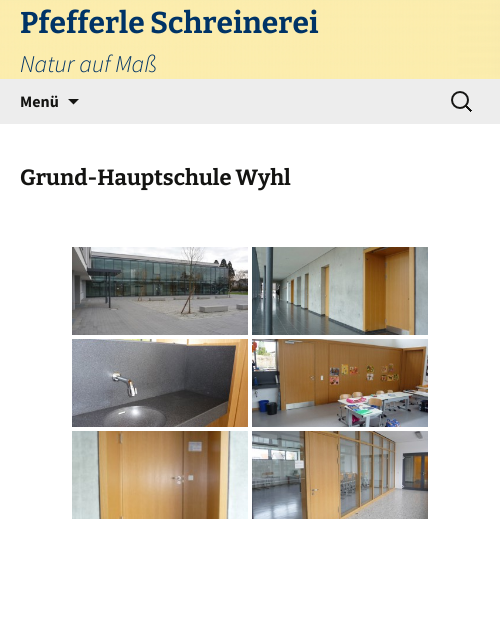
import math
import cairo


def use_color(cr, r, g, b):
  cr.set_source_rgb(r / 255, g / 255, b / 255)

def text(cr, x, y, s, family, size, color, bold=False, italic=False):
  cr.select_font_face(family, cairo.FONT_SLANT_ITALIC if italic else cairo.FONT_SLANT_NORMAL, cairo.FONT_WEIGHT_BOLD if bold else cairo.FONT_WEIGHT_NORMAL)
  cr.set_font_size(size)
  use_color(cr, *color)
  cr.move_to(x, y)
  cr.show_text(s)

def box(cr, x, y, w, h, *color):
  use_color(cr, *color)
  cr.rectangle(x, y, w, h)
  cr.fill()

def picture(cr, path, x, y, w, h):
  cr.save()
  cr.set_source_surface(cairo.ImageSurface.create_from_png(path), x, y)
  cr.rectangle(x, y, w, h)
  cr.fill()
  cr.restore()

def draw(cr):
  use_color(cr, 255, 255, 255)
  cr.paint()
  picture(cr, "img_01.png", 0, 0, 500, 79)
  box(cr, 0, 79, 500, 45, 237, 237, 237)
  use_color(cr, 20, 20, 18)
  cr.new_path()
  cr.move_to(68, 99)
  cr.line_to(73.5, 104.5)
  cr.line_to(79, 99)
  cr.close_path()
  cr.fill()
  picture(cr, "img_02.png", 451, 91, 21, 21)
  picture(cr, "img_03.png", 72, 247, 176, 88)
  picture(cr, "img_04.png", 252, 247, 176, 88)
  picture(cr, "img_05.png", 72, 339, 176, 88)
  picture(cr, "img_06.png", 252, 339, 176, 88)
  picture(cr, "img_07.png", 72, 431, 176, 88)
  picture(cr, "img_08.png", 252, 431, 176, 88)
  text(cr, 20, 33, "Pfefferle Schreinerei", "Bitter Thin", 30, (0, 51, 102))
  text(cr, 20, 72, "Natur auf Maß", "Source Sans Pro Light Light", 24, (0, 51, 102), italic=True)
  text(cr, 20, 107, "Menü", "Source Sans Pro", 16, (20, 20, 18), bold=True)
  text(cr, 20, 185, "Grund-Hauptschule Wyhl", "Bitter Thin", 22, (20, 20, 18))


surface = cairo.ImageSurface(cairo.FORMAT_RGB24, 500, 640)
cr = cairo.Context(surface)
options = cairo.FontOptions()
options.set_hint_metrics(cairo.HINT_METRICS_OFF)
options.set_hint_style(cairo.HINT_STYLE_NONE)
cr.set_font_options(options)
cr.set_miter_limit(4)
draw(cr)
surface.write_to_png("out.png")
